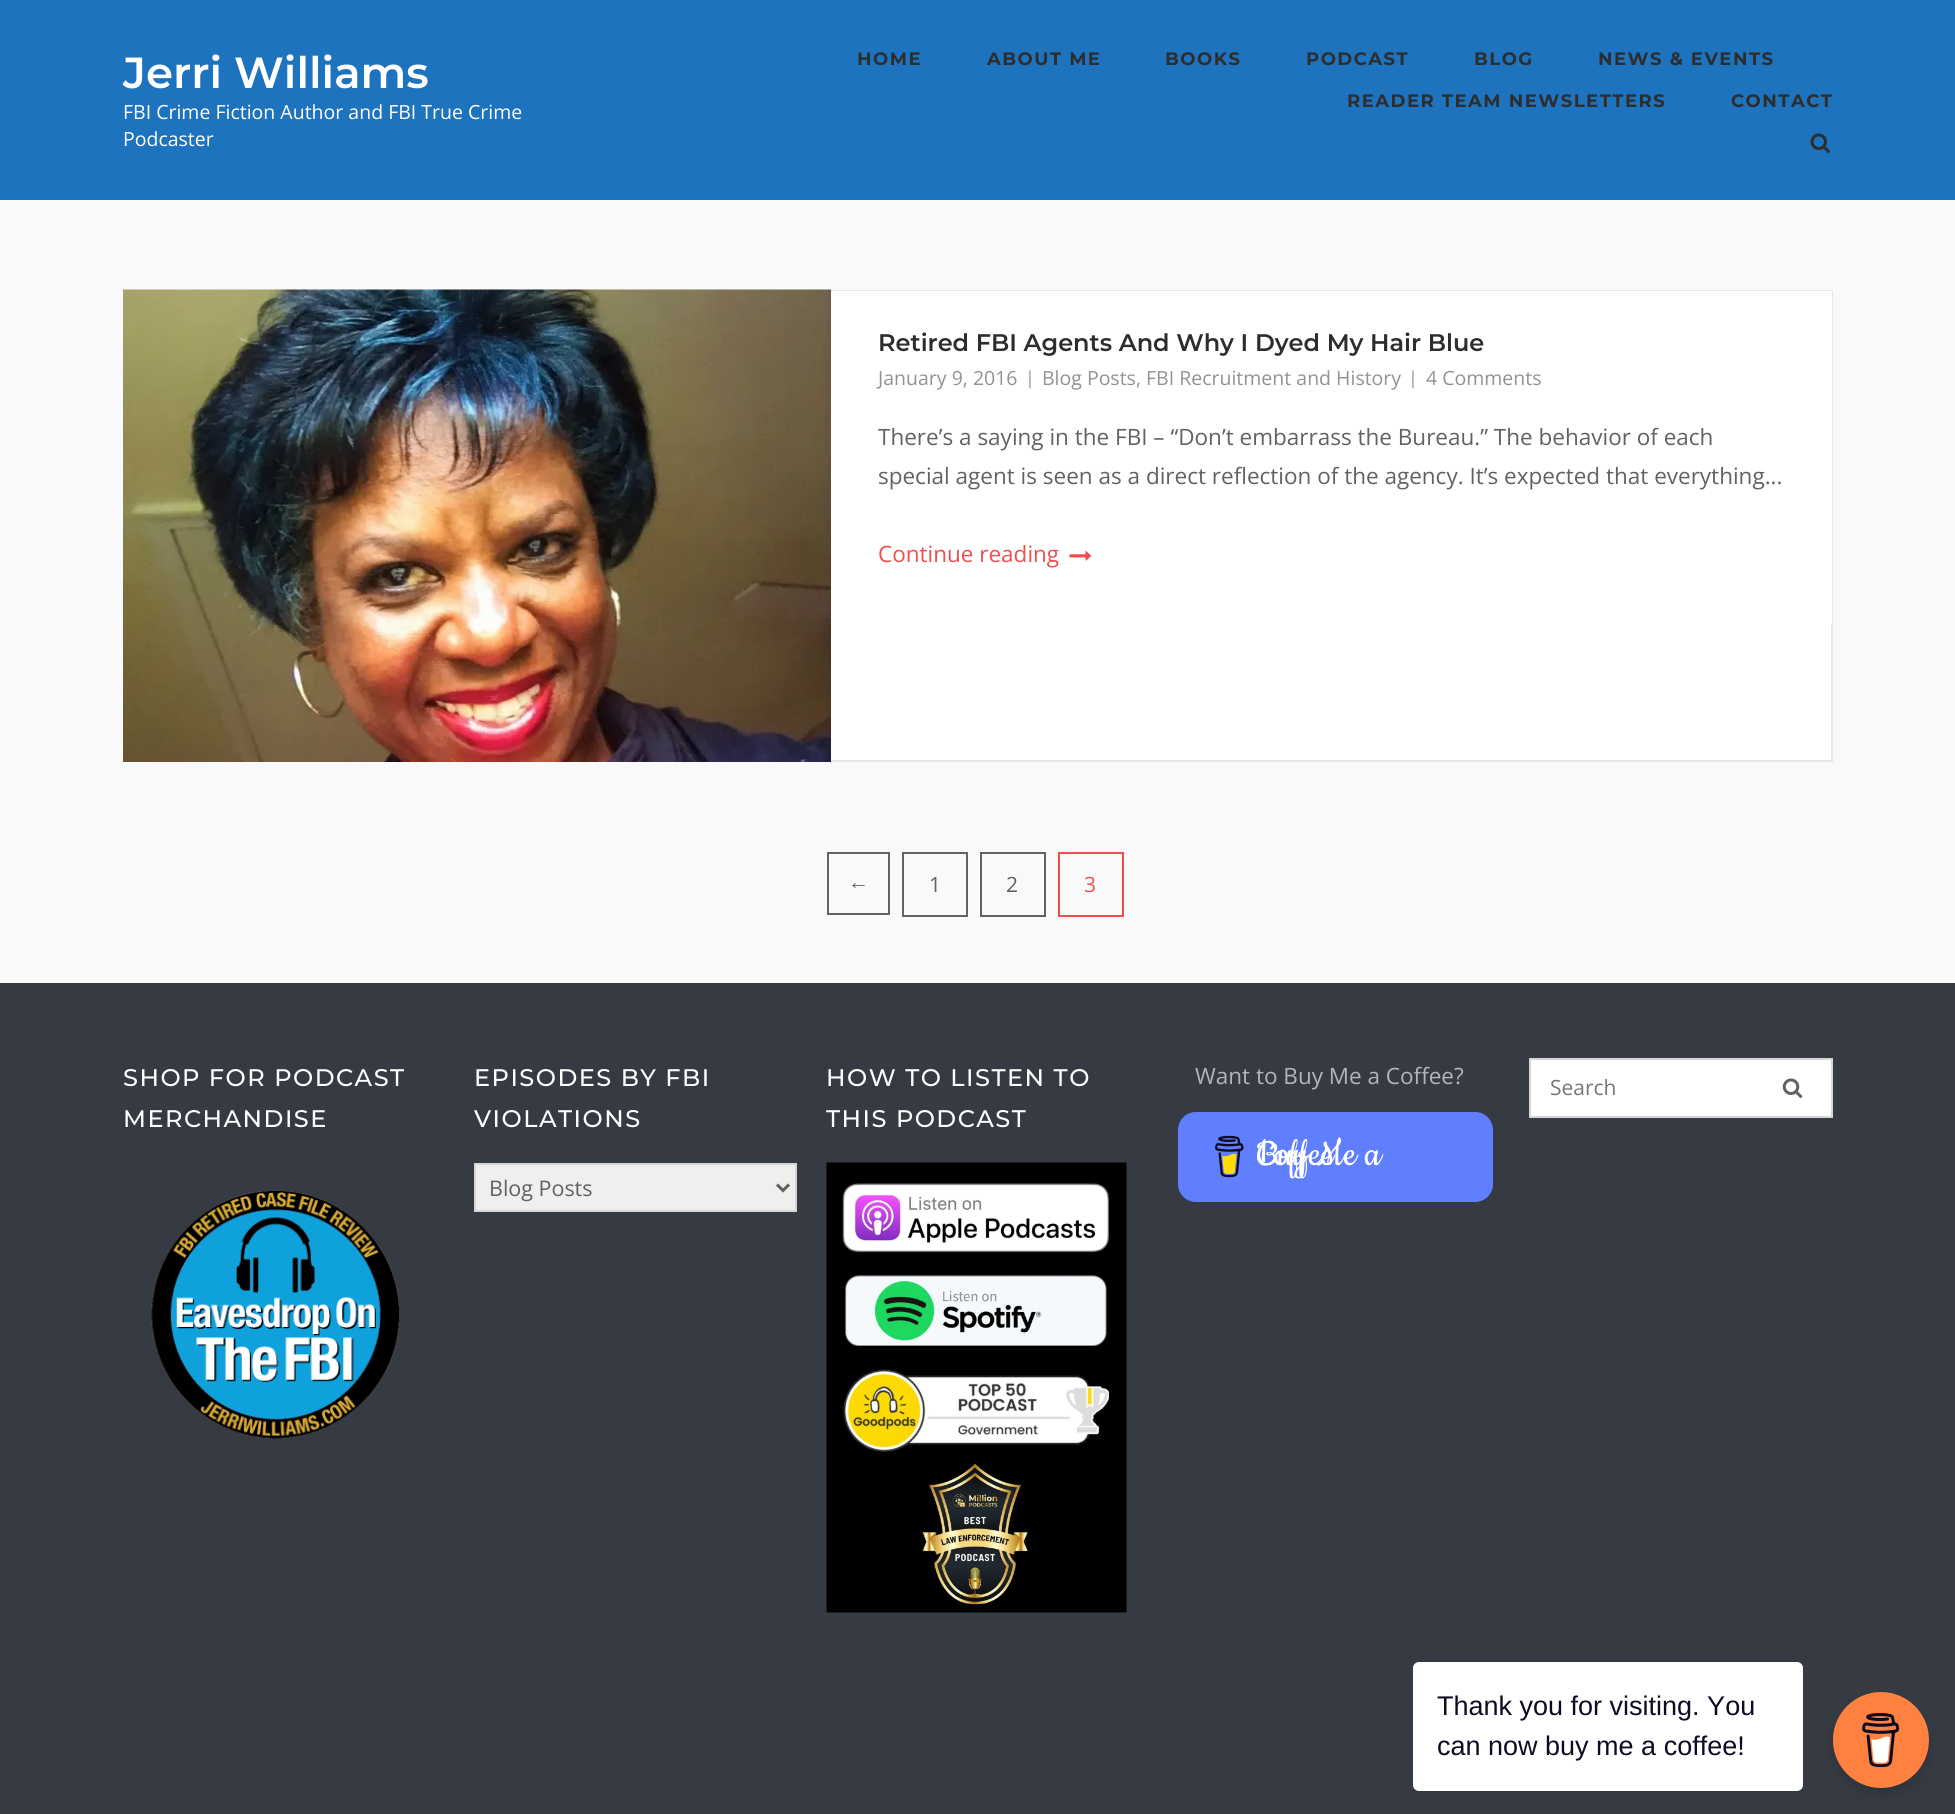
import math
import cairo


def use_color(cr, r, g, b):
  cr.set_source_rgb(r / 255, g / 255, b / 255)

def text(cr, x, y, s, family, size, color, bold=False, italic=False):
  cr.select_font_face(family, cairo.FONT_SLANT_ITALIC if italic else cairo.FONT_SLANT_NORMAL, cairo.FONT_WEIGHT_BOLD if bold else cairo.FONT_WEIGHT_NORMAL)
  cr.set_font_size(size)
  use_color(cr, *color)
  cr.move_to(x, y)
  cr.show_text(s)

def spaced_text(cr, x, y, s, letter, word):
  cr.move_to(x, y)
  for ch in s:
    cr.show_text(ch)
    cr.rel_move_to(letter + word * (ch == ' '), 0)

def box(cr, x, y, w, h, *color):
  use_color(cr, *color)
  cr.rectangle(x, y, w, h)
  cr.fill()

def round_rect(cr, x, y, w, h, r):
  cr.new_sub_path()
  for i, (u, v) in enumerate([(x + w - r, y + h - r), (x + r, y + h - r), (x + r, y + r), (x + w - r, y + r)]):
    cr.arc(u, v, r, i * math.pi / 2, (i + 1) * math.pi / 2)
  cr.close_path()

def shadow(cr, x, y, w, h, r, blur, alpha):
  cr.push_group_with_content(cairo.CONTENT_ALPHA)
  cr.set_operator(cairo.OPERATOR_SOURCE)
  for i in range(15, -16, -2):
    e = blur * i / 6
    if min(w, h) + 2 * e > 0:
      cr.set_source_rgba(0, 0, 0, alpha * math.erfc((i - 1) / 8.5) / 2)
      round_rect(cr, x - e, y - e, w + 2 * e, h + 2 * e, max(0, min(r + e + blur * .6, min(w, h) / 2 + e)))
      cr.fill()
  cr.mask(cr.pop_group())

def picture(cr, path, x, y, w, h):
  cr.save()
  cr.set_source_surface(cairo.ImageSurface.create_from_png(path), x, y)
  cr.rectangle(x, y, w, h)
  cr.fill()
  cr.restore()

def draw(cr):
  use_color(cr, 249, 249, 249)
  cr.paint()
  box(cr, 0, 0, 1955, 200, 30, 115, 190)
  picture(cr, "img_01.png", 1810, 133, 20, 20)
  box(cr, 831, 292, 1000, 468, 255, 255, 255)
  cr.rectangle(124, 291, 1708, 470)
  use_color(cr, 230, 230, 230)
  cr.stroke()
  picture(cr, "img_02.png", 123, 289, 708, 473)
  box(cr, 833, 291, 999, 333, 255, 255, 255)
  picture(cr, "img_03.png", 1069, 551, 23, 10)
  cr.rectangle(828, 853, 61, 61)
  use_color(cr, 98, 98, 98)
  cr.stroke()
  cr.rectangle(903, 853, 64, 63)
  cr.stroke()
  cr.rectangle(981, 853, 64, 63)
  cr.stroke()
  cr.rectangle(1059, 853, 64, 63)
  use_color(cr, 241, 78, 78)
  cr.stroke()
  box(cr, 0, 983, 1955, 831, 54, 58, 67)
  picture(cr, "img_04.png", 151, 1190, 249, 249)
  use_color(cr, 239, 239, 239)
  cr.rectangle(475, 1164, 321, 47)
  cr.fill_preserve()
  use_color(cr, 214, 214, 214)
  cr.stroke()
  cr.new_path()
  cr.move_to(777, 1184.5)
  cr.line_to(783, 1190.5)
  cr.line_to(789, 1184.5)
  use_color(cr, 98, 98, 98)
  cr.set_line_width(3)
  cr.stroke()
  picture(cr, "img_05.png", 826, 1162, 301, 451)
  use_color(cr, 95, 127, 255)
  round_rect(cr, 1178, 1112, 315, 90, 18)
  cr.fill()
  picture(cr, "img_06.png", 1215, 1135, 29, 43)
  use_color(cr, 255, 255, 255)
  cr.rectangle(1530, 1059, 302, 58)
  cr.fill_preserve()
  use_color(cr, 214, 214, 214)
  cr.set_line_width(2)
  cr.stroke()
  picture(cr, "img_07.png", 1782, 1078, 21, 20)
  use_color(cr, 0, 0, 0)
  shadow(cr, 1413, 1662, 390, 129, 6, 1.5, 0.15)
  use_color(cr, 255, 255, 255)
  round_rect(cr, 1413, 1662, 390, 129, 6)
  cr.fill()
  use_color(cr, 0, 0, 0)
  shadow(cr, 1833, 1698, 96, 96, 48, 6, 0.15)
  use_color(cr, 255, 129, 63)
  cr.arc(1881, 1740, 48, 0, 2 * math.pi)
  cr.fill()
  picture(cr, "img_08.png", 1862, 1713, 38, 54)
  text(cr, 123, 88, "Jerri Williams", "Montserrat SemiBold", 43.5, (255, 255, 255))
  text(cr, 123, 119, "FBI Crime Fiction Author and FBI True Crime", "Open Sans", 19.5, (255, 255, 255))
  text(cr, 123, 146, "Podcaster", "Open Sans", 19.5, (255, 255, 255))
  cr.select_font_face("Montserrat", cairo.FONT_SLANT_NORMAL, cairo.FONT_WEIGHT_BOLD)
  cr.set_font_size(18)
  use_color(cr, 45, 45, 45)
  spaced_text(cr, 857, 65, "HOME", 1.5, 0)
  spaced_text(cr, 987, 65, "ABOUT ME", 1.5, 0)
  spaced_text(cr, 1165, 65, "BOOKS", 1.5, 0)
  spaced_text(cr, 1306, 65, "PODCAST", 1.5, 0)
  spaced_text(cr, 1474, 65, "BLOG", 1.5, 0)
  spaced_text(cr, 1598, 65, "NEWS & EVENTS", 1.5, 0)
  spaced_text(cr, 1347, 107, "READER TEAM NEWSLETTERS", 1.5, 0)
  spaced_text(cr, 1731, 107, "CONTACT", 1.5, 0)
  text(cr, 878, 351, "Retired FBI Agents And Why I Dyed My Hair Blue", "Montserrat SemiBold", 24, (45, 45, 45))
  text(cr, 878, 385, "January 9, 2016", "Open Sans", 19.5, (146, 146, 146))
  text(cr, 1025, 384, "|", "Open Sans", 18, (146, 146, 146))
  text(cr, 1042, 385, "Blog Posts, FBI Recruitment and History", "Open Sans", 19.5, (146, 146, 146))
  text(cr, 1408, 384, "|", "Open Sans", 18, (146, 146, 146))
  text(cr, 1426, 385, "4 Comments", "Open Sans", 19.5, (146, 146, 146))
  text(cr, 878, 445, "There’s a saying in the FBI – “Don’t embarrass the Bureau.” The behavior of each", "Open Sans", 22.5, (98, 98, 98))
  text(cr, 878, 484, "special agent is seen as a direct reflection of the agency. It’s expected that everything...", "Open Sans", 22.5, (98, 98, 98))
  text(cr, 878, 562, "Continue reading", "Open Sans", 22.5, (241, 78, 78))
  text(cr, 848, 889, "←", "Liberation Serif", 21, (98, 98, 98))
  text(cr, 929, 892, "1", "Open Sans", 21, (98, 98, 98))
  text(cr, 1006, 892, "2", "Open Sans", 21, (98, 98, 98))
  text(cr, 1084, 892, "3", "Open Sans", 21, (241, 78, 78))
  cr.select_font_face("Montserrat Medium")
  cr.set_font_size(24)
  use_color(cr, 255, 255, 255)
  spaced_text(cr, 123, 1086, "SHOP FOR PODCAST", 1.5, 0)
  spaced_text(cr, 123, 1127, "MERCHANDISE", 1.5, 0)
  spaced_text(cr, 474, 1086, "EPISODES BY FBI", 1.5, 0)
  spaced_text(cr, 474, 1127, "VIOLATIONS", 1.5, 0)
  text(cr, 489, 1196, "Blog Posts", "Open Sans", 21.5, (98, 98, 98))
  cr.select_font_face("Montserrat Medium")
  cr.set_font_size(24)
  use_color(cr, 255, 255, 255)
  spaced_text(cr, 826, 1086, "HOW TO LISTEN TO", 1.5, 0)
  spaced_text(cr, 826, 1127, "THIS PODCAST", 1.5, 0)
  text(cr, 1195, 1084, "Want to Buy Me a Coffee?", "Open Sans", 22.5, (180, 181, 184))
  text(cr, 1257, 1165, "Buy Me a", "Cookie", 42, (255, 255, 255))
  text(cr, 1257, 1165, "Coffee", "Cookie", 42, (255, 255, 255))
  text(cr, 1550, 1095, "Search", "Open Sans", 21, (117, 117, 117))
  text(cr, 1437, 1715, "Thank you for visiting. You", "Liberation Sans", 27, (13, 12, 34))
  text(cr, 1437, 1755, "can now buy me a coffee!", "Liberation Sans", 27, (13, 12, 34))


surface = cairo.ImageSurface(cairo.FORMAT_RGB24, 1955, 1814)
cr = cairo.Context(surface)
options = cairo.FontOptions()
options.set_hint_metrics(cairo.HINT_METRICS_OFF)
options.set_hint_style(cairo.HINT_STYLE_NONE)
cr.set_font_options(options)
cr.set_miter_limit(4)
draw(cr)
surface.write_to_png("out.png")
